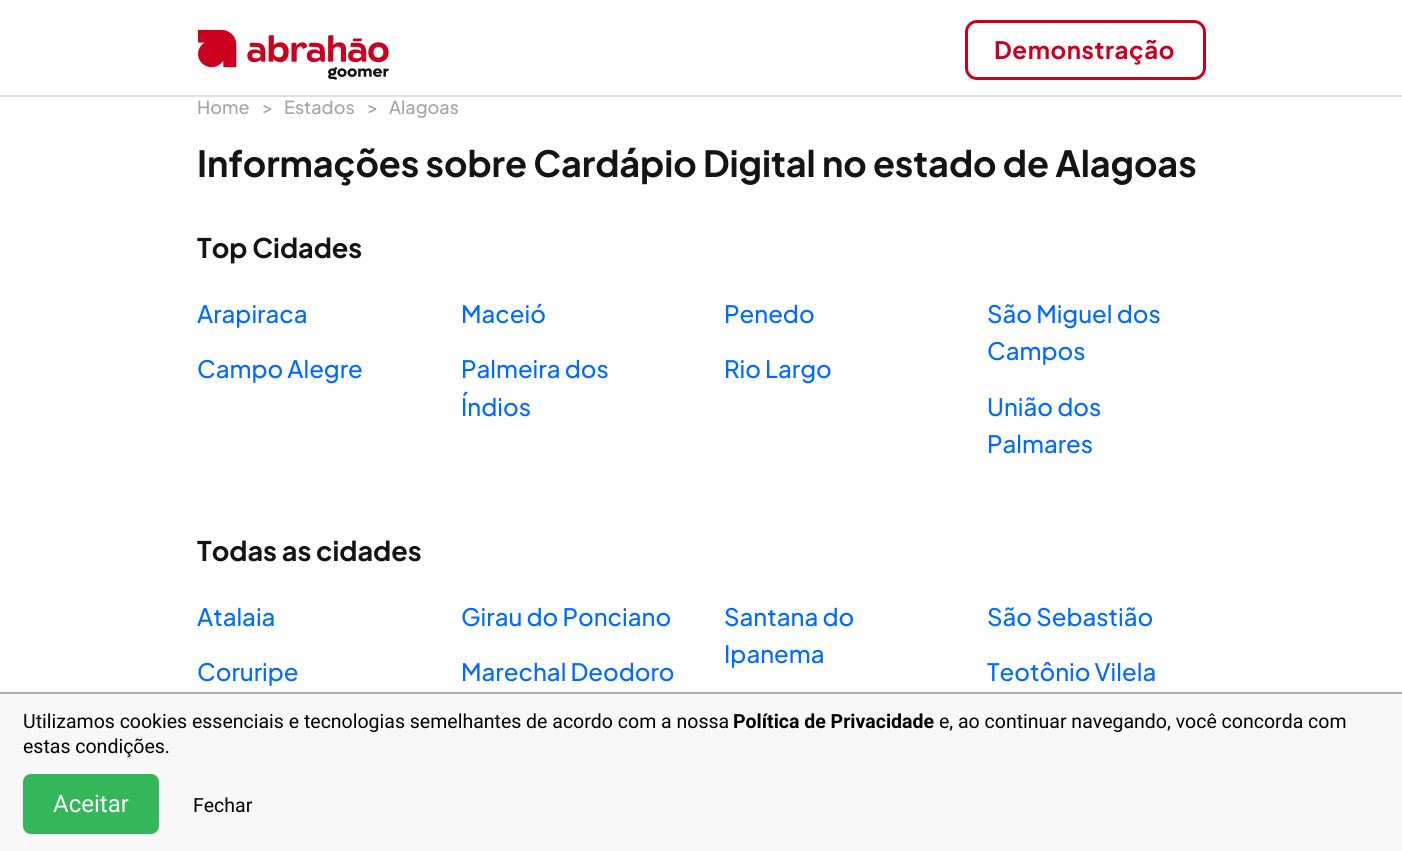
import math
import cairo


def use_color(cr, r, g, b):
  cr.set_source_rgb(r / 255, g / 255, b / 255)

def text(cr, x, y, s, family, size, color, bold=False, italic=False):
  cr.select_font_face(family, cairo.FONT_SLANT_ITALIC if italic else cairo.FONT_SLANT_NORMAL, cairo.FONT_WEIGHT_BOLD if bold else cairo.FONT_WEIGHT_NORMAL)
  cr.set_font_size(size)
  use_color(cr, *color)
  cr.move_to(x, y)
  cr.show_text(s)

def spaced_text(cr, x, y, s, letter, word):
  cr.move_to(x, y)
  for ch in s:
    cr.show_text(ch)
    cr.rel_move_to(letter + word * (ch == ' '), 0)

def box(cr, x, y, w, h, *color):
  use_color(cr, *color)
  cr.rectangle(x, y, w, h)
  cr.fill()

def round_rect(cr, x, y, w, h, r):
  cr.new_sub_path()
  for i, (u, v) in enumerate([(x + w - r, y + h - r), (x + r, y + h - r), (x + r, y + r), (x + w - r, y + r)]):
    cr.arc(u, v, r, i * math.pi / 2, (i + 1) * math.pi / 2)
  cr.close_path()

def picture(cr, path, x, y, w, h):
  cr.save()
  cr.set_source_surface(cairo.ImageSurface.create_from_png(path), x, y)
  cr.rectangle(x, y, w, h)
  cr.fill()
  cr.restore()

def draw(cr):
  use_color(cr, 255, 255, 255)
  cr.paint()
  box(cr, 0, 694, 1402, 157, 248, 248, 248)
  box(cr, 0, 95, 1402, 2, 226, 226, 225)
  picture(cr, "img_01.png", 198, 29, 191, 51)
  round_rect(cr, 966.5, 21.5, 238, 57, 10.5)
  use_color(cr, 203, 0, 31)
  cr.set_line_width(3)
  cr.stroke()
  box(cr, 0, 692, 1402, 2, 174, 174, 174)
  use_color(cr, 52, 183, 90)
  round_rect(cr, 23, 774, 136, 60, 8)
  cr.fill()
  cr.select_font_face("Plus Jakarta Sans", cairo.FONT_SLANT_NORMAL, cairo.FONT_WEIGHT_BOLD)
  cr.set_font_size(24)
  use_color(cr, 203, 0, 31)
  spaced_text(cr, 994, 59, "Demonstração", 0.6, 0)
  text(cr, 197, 114, "Home", "Plus Jakarta Sans Medium", 18, (164, 164, 164))
  text(cr, 262, 114, ">", "Plus Jakarta Sans Medium", 18, (164, 164, 164))
  text(cr, 284, 114, "Estados", "Plus Jakarta Sans Medium", 18, (164, 164, 164))
  text(cr, 367, 114, ">", "Plus Jakarta Sans Medium", 18, (164, 164, 164))
  text(cr, 389, 114, "Alagoas", "Plus Jakarta Sans Medium", 18, (164, 164, 164))
  cr.select_font_face("Plus Jakarta Sans", cairo.FONT_SLANT_NORMAL, cairo.FONT_WEIGHT_BOLD)
  cr.set_font_size(36)
  use_color(cr, 20, 20, 20)
  spaced_text(cr, 197, 177, "Informações sobre Cardápio Digital no estado de Alagoas", -0.07, 0)
  text(cr, 197, 258, "Top Cidades", "Plus Jakarta Sans", 27, (20, 20, 20), bold=True)
  text(cr, 197, 323, "Arapiraca", "Plus Jakarta Sans Medium", 24, (0, 106, 255))
  text(cr, 197, 378, "Campo Alegre", "Plus Jakarta Sans Medium", 24, (0, 106, 255))
  text(cr, 461, 323, "Maceió", "Plus Jakarta Sans Medium", 24, (0, 106, 255))
  text(cr, 461, 378, "Palmeira dos", "Plus Jakarta Sans Medium", 24, (0, 106, 255))
  text(cr, 461, 416, "Índios", "Plus Jakarta Sans Medium", 24, (0, 106, 255))
  text(cr, 724, 323, "Penedo", "Plus Jakarta Sans Medium", 24, (0, 106, 255))
  text(cr, 724, 378, "Rio Largo", "Plus Jakarta Sans Medium", 24, (0, 106, 255))
  text(cr, 987, 323, "São Miguel dos", "Plus Jakarta Sans Medium", 24, (0, 106, 255))
  text(cr, 987, 360, "Campos", "Plus Jakarta Sans Medium", 24, (0, 106, 255))
  text(cr, 987, 416, "União dos", "Plus Jakarta Sans Medium", 24, (0, 106, 255))
  text(cr, 987, 453, "Palmares", "Plus Jakarta Sans Medium", 24, (0, 106, 255))
  text(cr, 197, 561, "Todas as cidades", "Plus Jakarta Sans", 27, (20, 20, 20), bold=True)
  text(cr, 197, 626, "Atalaia", "Plus Jakarta Sans Medium", 24, (0, 106, 255))
  text(cr, 197, 681, "Coruripe", "Plus Jakarta Sans Medium", 24, (0, 106, 255))
  text(cr, 461, 626, "Girau do Ponciano", "Plus Jakarta Sans Medium", 24, (0, 106, 255))
  text(cr, 461, 681, "Marechal Deodoro", "Plus Jakarta Sans Medium", 24, (0, 106, 255))
  text(cr, 724, 626, "Santana do", "Plus Jakarta Sans Medium", 24, (0, 106, 255))
  text(cr, 724, 663, "Ipanema", "Plus Jakarta Sans Medium", 24, (0, 106, 255))
  text(cr, 987, 626, "São Sebastião", "Plus Jakarta Sans Medium", 24, (0, 106, 255))
  text(cr, 987, 681, "Teotônio Vilela", "Plus Jakarta Sans Medium", 24, (0, 106, 255))
  text(cr, 23, 728, "Utilizamos cookies essenciais e tecnologias semelhantes de acordo com a nossa", "Roboto", 19.5, (0, 0, 0))
  text(cr, 733, 728, "Política de Privacidade", "Roboto", 19.5, (0, 0, 0), bold=True)
  text(cr, 939, 728, "e, ao continuar navegando, você concorda com", "Roboto", 19.5, (0, 0, 0))
  text(cr, 23, 753, "estas condições.", "Roboto", 19.5, (0, 0, 0))
  text(cr, 53, 812, "Aceitar", "Roboto", 24, (255, 255, 255))
  text(cr, 193, 812, "Fechar", "Roboto", 19.5, (0, 0, 0))


surface = cairo.ImageSurface(cairo.FORMAT_RGB24, 1402, 851)
cr = cairo.Context(surface)
options = cairo.FontOptions()
options.set_hint_metrics(cairo.HINT_METRICS_OFF)
options.set_hint_style(cairo.HINT_STYLE_NONE)
cr.set_font_options(options)
cr.set_miter_limit(4)
draw(cr)
surface.write_to_png("out.png")
